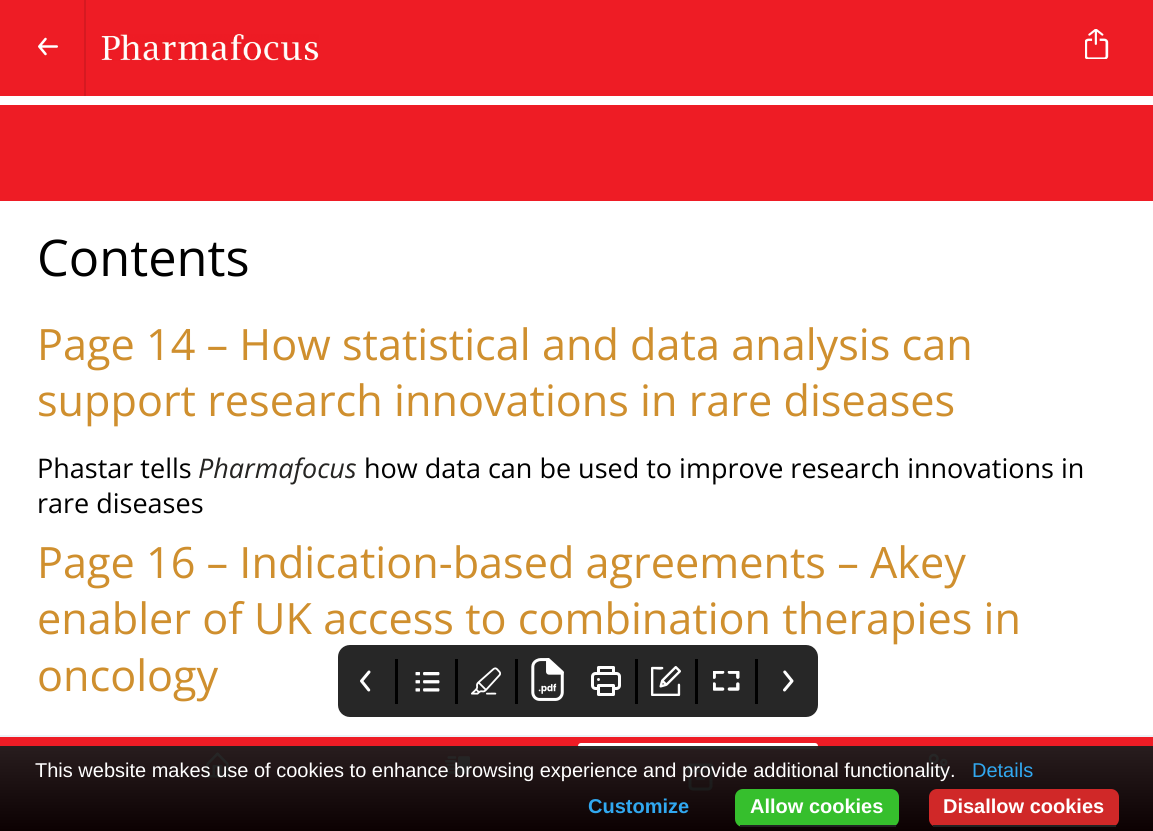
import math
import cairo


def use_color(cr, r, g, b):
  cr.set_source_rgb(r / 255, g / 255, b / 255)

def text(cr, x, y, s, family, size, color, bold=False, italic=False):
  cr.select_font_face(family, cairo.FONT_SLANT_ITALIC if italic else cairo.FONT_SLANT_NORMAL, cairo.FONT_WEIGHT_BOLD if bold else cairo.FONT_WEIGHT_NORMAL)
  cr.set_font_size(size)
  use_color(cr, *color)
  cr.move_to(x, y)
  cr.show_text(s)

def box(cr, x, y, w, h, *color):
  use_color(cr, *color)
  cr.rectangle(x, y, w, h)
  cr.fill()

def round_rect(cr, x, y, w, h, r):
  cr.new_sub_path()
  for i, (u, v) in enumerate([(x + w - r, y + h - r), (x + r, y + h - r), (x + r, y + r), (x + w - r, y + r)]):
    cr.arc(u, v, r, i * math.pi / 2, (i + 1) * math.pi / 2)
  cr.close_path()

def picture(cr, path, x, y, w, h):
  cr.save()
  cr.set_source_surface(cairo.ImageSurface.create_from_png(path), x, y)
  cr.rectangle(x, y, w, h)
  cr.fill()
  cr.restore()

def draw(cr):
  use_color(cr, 255, 255, 255)
  cr.paint()
  box(cr, 0, 0, 1153, 96, 238, 28, 37)
  box(cr, 84, 0, 2, 96, 214, 25, 33)
  picture(cr, "img_01.png", 38, 37, 20, 19)
  picture(cr, "img_02.png", 101, 34, 218, 27)
  picture(cr, "img_03.png", 1085, 29, 24, 30)
  box(cr, 0, 737, 1153, 94, 238, 28, 37)
  box(cr, 0, 735, 1153, 2, 237, 241, 247)
  picture(cr, "img_04.png", 206, 752, 23, 26)
  picture(cr, "img_05.png", 445, 756, 25, 18)
  use_color(cr, 255, 255, 255)
  round_rect(cr, 578, 743, 240, 6, 3)
  cr.fill()
  picture(cr, "img_06.png", 687, 763, 27, 28)
  picture(cr, "img_07.png", 925, 753, 25, 24)
  box(cr, 0, 105, 1153, 96, 238, 28, 37)
  use_color(cr, 39, 39, 39)
  round_rect(cr, 338, 645, 480, 72, 12)
  cr.fill()
  box(cr, 395, 659, 3, 45, 0, 0, 0)
  picture(cr, "img_08.png", 360, 670, 11, 22)
  box(cr, 455, 659, 3, 45, 0, 0, 0)
  picture(cr, "img_09.png", 415, 672, 25, 20)
  box(cr, 515, 659, 3, 45, 0, 0, 0)
  picture(cr, "img_10.png", 471, 667, 30, 28)
  picture(cr, "img_11.png", 531, 658, 33, 43)
  box(cr, 635, 659, 3, 45, 0, 0, 0)
  picture(cr, "img_12.png", 591, 666, 30, 30)
  box(cr, 695, 659, 3, 45, 0, 0, 0)
  picture(cr, "img_13.png", 651, 666, 30, 30)
  box(cr, 755, 659, 3, 45, 0, 0, 0)
  picture(cr, "img_14.png", 713, 671, 27, 20)
  picture(cr, "img_15.png", 783, 670, 11, 22)
  gradient = cairo.LinearGradient(577, 745, 577, 831)
  gradient.add_color_stop_rgba(0, 0.118, 0.118, 0.118, 0.95)
  gradient.add_color_stop_rgba(1, 0, 0, 0, 0.95)
  cr.set_source(gradient)
  cr.rectangle(0, 746, 1153, 85)
  cr.fill()
  use_color(cr, 54, 191, 45)
  round_rect(cr, 735, 789, 164, 38, 8)
  cr.fill()
  box(cr, 740, 825, 156, 2, 34, 34, 34)
  use_color(cr, 208, 40, 40)
  round_rect(cr, 929, 789, 190, 38, 8)
  cr.fill()
  box(cr, 933, 825, 183, 2, 34, 34, 34)
  text(cr, 37, 276, "Contents", "Open Sans", 50.5, (0, 0, 0))
  text(cr, 37, 360, "Page 14 – How statistical and data analysis can", "Open Sans", 43.2, (207, 143, 46))
  text(cr, 37, 416, "support research innovations in rare diseases", "Open Sans", 43.2, (207, 143, 46))
  text(cr, 37, 478, "Phastar tells", "Open Sans", 27, (0, 0, 0))
  text(cr, 198, 478, "Pharmafocus", "Open Sans", 27, (38, 37, 35), italic=True)
  text(cr, 364, 478, "how data can be used to improve research innovations in", "Open Sans", 27, (0, 0, 0))
  text(cr, 37, 513, "rare diseases", "Open Sans", 27, (0, 0, 0))
  text(cr, 37, 578, "Page 16 – Indication-based agreements – Akey", "Open Sans", 43.2, (207, 143, 46))
  text(cr, 37, 634, "enabler of UK access to combination therapies in", "Open Sans", 43.2, (207, 143, 46))
  text(cr, 37, 691, "oncology", "Open Sans", 43.2, (207, 143, 46))
  text(cr, 35, 777, "This website makes use of cookies to enhance browsing experience and provide additional functionality.", "Liberation Sans", 20, (255, 255, 255))
  text(cr, 972, 777, "Details", "Liberation Sans", 20, (49, 168, 240))
  text(cr, 588, 813, "Customize", "Liberation Sans", 20, (49, 168, 240), bold=True)
  text(cr, 750, 813, "Allow cookies", "Liberation Sans", 20, (255, 255, 255), bold=True)
  text(cr, 943, 813, "Disallow cookies", "Liberation Sans", 20, (255, 255, 255), bold=True)


surface = cairo.ImageSurface(cairo.FORMAT_RGB24, 1153, 831)
cr = cairo.Context(surface)
options = cairo.FontOptions()
options.set_hint_metrics(cairo.HINT_METRICS_OFF)
options.set_hint_style(cairo.HINT_STYLE_NONE)
cr.set_font_options(options)
cr.set_miter_limit(4)
draw(cr)
surface.write_to_png("out.png")
